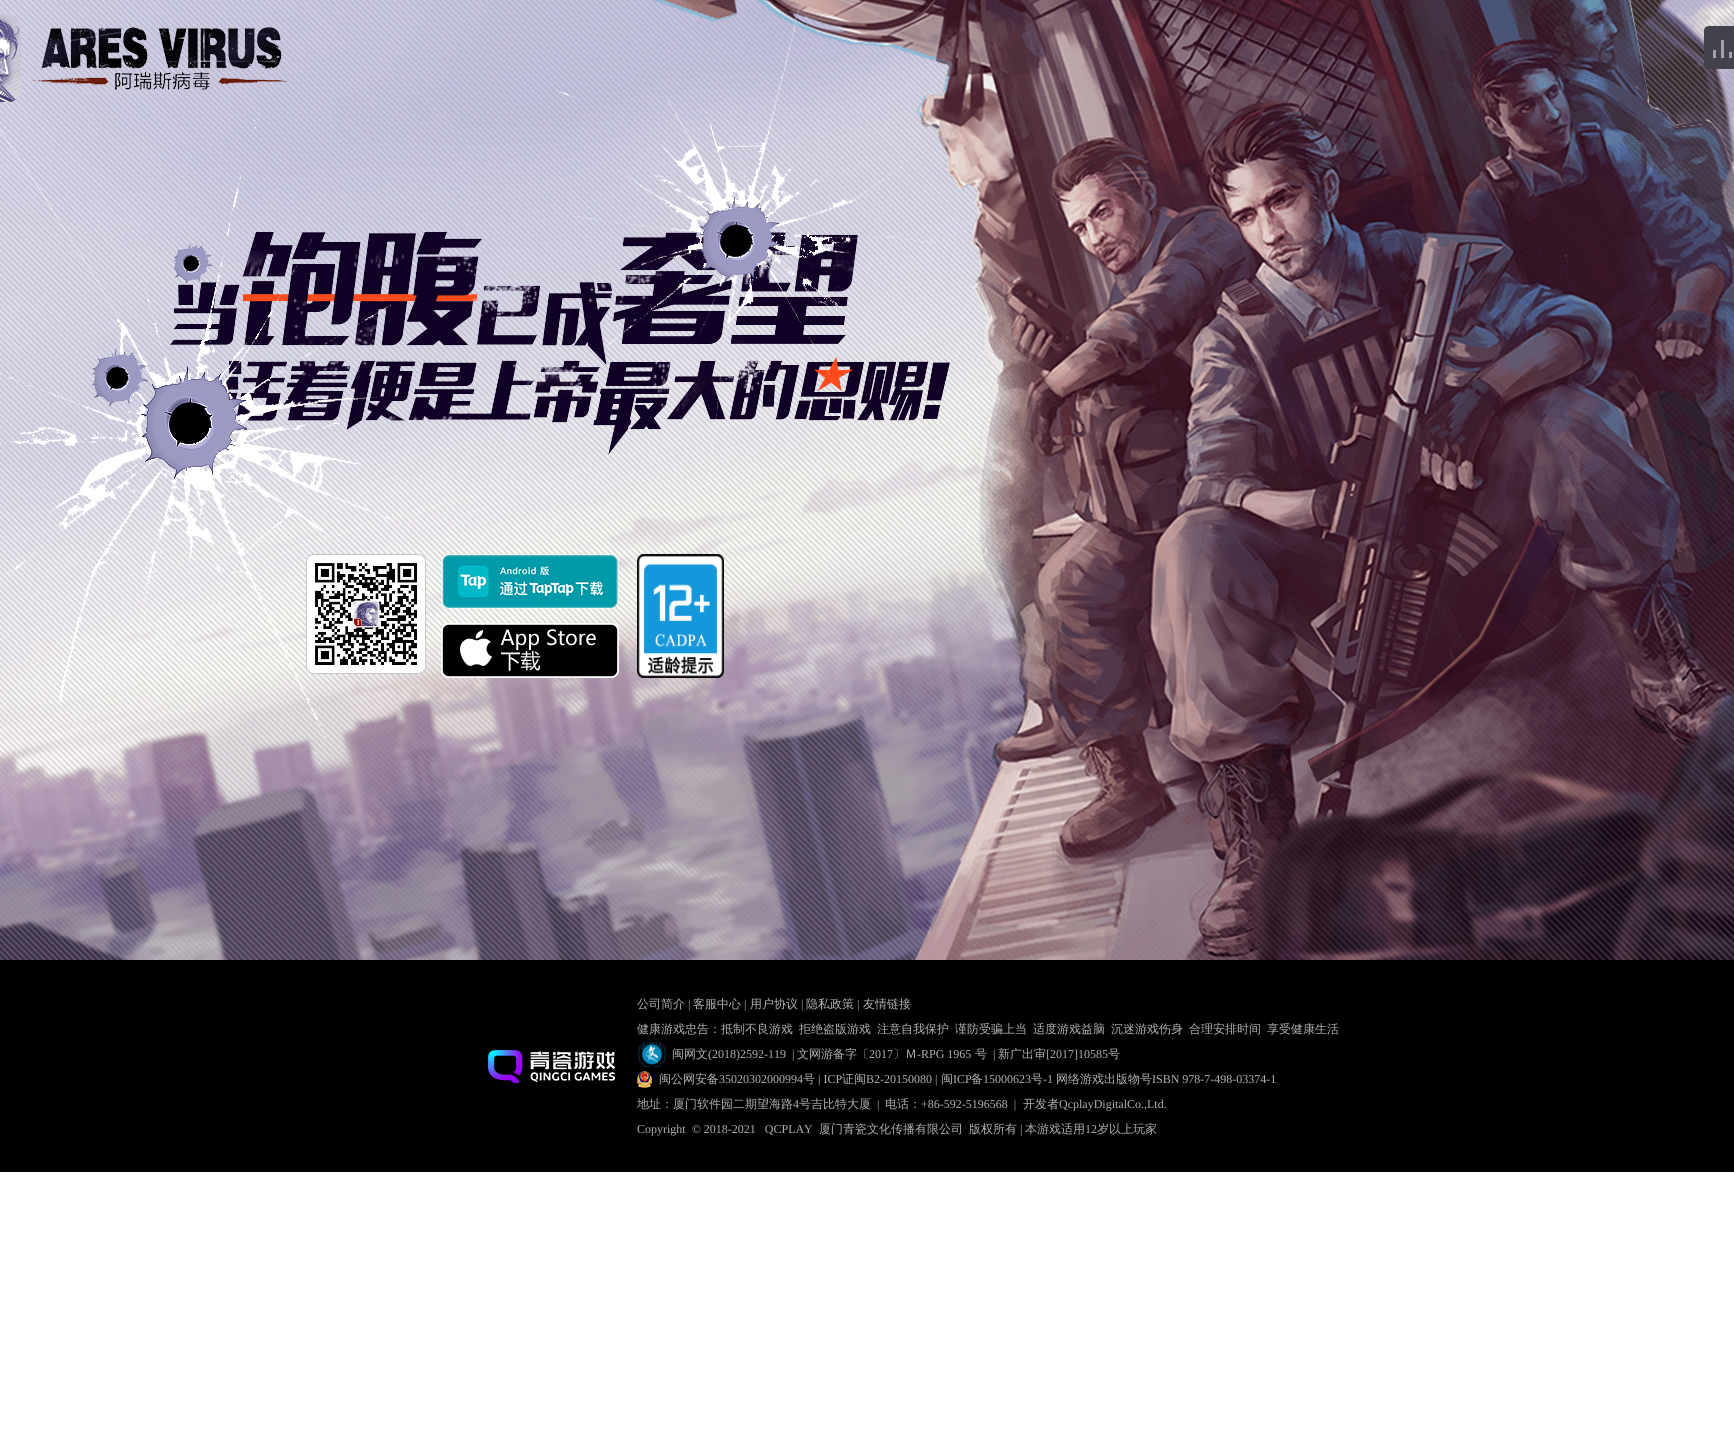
import math
import cairo


def use_color(cr, r, g, b):
  cr.set_source_rgb(r / 255, g / 255, b / 255)

def text(cr, x, y, s, family, size, color, bold=False, italic=False):
  cr.select_font_face(family, cairo.FONT_SLANT_ITALIC if italic else cairo.FONT_SLANT_NORMAL, cairo.FONT_WEIGHT_BOLD if bold else cairo.FONT_WEIGHT_NORMAL)
  cr.set_font_size(size)
  use_color(cr, *color)
  cr.move_to(x, y)
  cr.show_text(s)

def box(cr, x, y, w, h, *color):
  use_color(cr, *color)
  cr.rectangle(x, y, w, h)
  cr.fill()

def round_rect(cr, x, y, w, h, r):
  cr.new_sub_path()
  for i, (u, v) in enumerate([(x + w - r, y + h - r), (x + r, y + h - r), (x + r, y + r), (x + w - r, y + r)]):
    cr.arc(u, v, r, i * math.pi / 2, (i + 1) * math.pi / 2)
  cr.close_path()

def picture(cr, path, x, y, w, h):
  cr.save()
  cr.set_source_surface(cairo.ImageSurface.create_from_png(path), x, y)
  cr.rectangle(x, y, w, h)
  cr.fill()
  cr.restore()

def draw(cr):
  use_color(cr, 255, 255, 255)
  cr.paint()
  picture(cr, "img_01.png", 0, 0, 1734, 960)
  picture(cr, "img_12.png", 1068, 169, 324, 214)
  picture(cr, "img_09.png", 653, 0, 1081, 960)
  picture(cr, "img_02.png", 170, 232, 780, 223)
  picture(cr, "img_03.png", 0, 112, 395, 626)
  picture(cr, "img_04.png", 556, 10, 380, 478)
  picture(cr, "img_05.png", 173, 243, 40, 41)
  picture(cr, "img_06.png", 700, 197, 82, 87)
  picture(cr, "img_07.png", 92, 348, 56, 59)
  picture(cr, "img_08.png", 141, 366, 106, 113)
  picture(cr, "img_10.png", 0, 14, 288, 88)
  use_color(cr, 66, 65, 76)
  cr.new_path()
  cr.move_to(1709, 26)
  cr.line_to(1734, 26)
  cr.line_to(1734, 69)
  cr.line_to(1709, 69)
  cr.curve_to(1706, 69, 1704, 67, 1704, 64)
  cr.line_to(1704, 31)
  cr.curve_to(1704, 28, 1706, 26, 1709, 26)
  cr.close_path()
  cr.fill()
  picture(cr, "img_11.png", 1713, 40, 19, 18)
  round_rect(cr, 306.5, 554.5, 119, 119, 7.5)
  use_color(cr, 198, 198, 198)
  cr.set_line_width(1)
  cr.stroke()
  picture(cr, "img_13.png", 307, 555, 118, 118)
  picture(cr, "img_14.png", 441, 554, 178, 55)
  picture(cr, "img_15.png", 441, 623, 178, 55)
  picture(cr, "img_16.png", 637, 554, 87, 124)
  picture(cr, "img_17.png", 1307, 515, 258, 268)
  box(cr, 0, 960, 1734, 212, 0, 0, 0)
  picture(cr, "img_18.png", 488, 1050, 127, 33)
  picture(cr, "img_19.png", 637, 1042, 30, 25)
  picture(cr, "img_20.png", 637, 1071, 15, 17)
  text(cr, 637, 1008, "公司简介", "WenQuanYi Zen Hei Medium", 12, (178, 178, 178))
  text(cr, 688, 1008, "|", "Liberation Serif", 12, (178, 178, 178))
  text(cr, 693, 1008, "客服中心", "WenQuanYi Zen Hei Medium", 12, (178, 178, 178))
  text(cr, 744, 1008, "|", "Liberation Serif", 12, (178, 178, 178))
  text(cr, 750, 1008, "用户协议", "WenQuanYi Zen Hei Medium", 12, (178, 178, 178))
  text(cr, 801, 1008, "|", "Liberation Serif", 12, (178, 178, 178))
  text(cr, 806, 1008, "隐私政策", "WenQuanYi Zen Hei Medium", 12, (178, 178, 178))
  text(cr, 857, 1008, "|", "Liberation Serif", 12, (178, 178, 178))
  text(cr, 863, 1008, "友情链接", "WenQuanYi Zen Hei Medium", 12, (178, 178, 178))
  text(cr, 637, 1033, "健康游戏忠告：抵制不良游戏", "WenQuanYi Zen Hei Medium", 12, (178, 178, 178))
  text(cr, 799, 1033, "拒绝盗版游戏", "WenQuanYi Zen Hei Medium", 12, (178, 178, 178))
  text(cr, 877, 1033, "注意自我保护", "WenQuanYi Zen Hei Medium", 12, (178, 178, 178))
  text(cr, 955, 1033, "谨防受骗上当", "WenQuanYi Zen Hei Medium", 12, (178, 178, 178))
  text(cr, 1033, 1033, "适度游戏益脑", "WenQuanYi Zen Hei Medium", 12, (178, 178, 178))
  text(cr, 1111, 1033, "沉迷游戏伤身", "WenQuanYi Zen Hei Medium", 12, (178, 178, 178))
  text(cr, 1189, 1033, "合理安排时间", "WenQuanYi Zen Hei Medium", 12, (178, 178, 178))
  text(cr, 1267, 1033, "享受健康生活", "WenQuanYi Zen Hei Medium", 12, (178, 178, 178))
  text(cr, 672, 1058, "闽网文", "WenQuanYi Zen Hei Medium", 12, (178, 178, 178))
  text(cr, 708, 1058, "(2018)2592-119", "Liberation Serif", 12, (178, 178, 178))
  text(cr, 792, 1058, "|", "Liberation Serif", 12, (178, 178, 178))
  text(cr, 797, 1058, "文网游备字〔", "WenQuanYi Zen Hei Medium", 12, (178, 178, 178))
  text(cr, 869, 1058, "2017", "Liberation Serif", 12, (178, 178, 178))
  text(cr, 893, 1058, "〕Ｍ", "WenQuanYi Zen Hei Medium", 12, (178, 178, 178))
  text(cr, 917, 1058, "-RPG 1965", "Liberation Serif", 12, (178, 178, 178))
  text(cr, 975, 1058, "号", "WenQuanYi Zen Hei Medium", 12, (178, 178, 178))
  text(cr, 993, 1058, "|", "Liberation Serif", 12, (178, 178, 178))
  text(cr, 998, 1058, "新广出审", "WenQuanYi Zen Hei Medium", 12, (178, 178, 178))
  text(cr, 1046, 1058, "[2017]10585", "Liberation Serif", 12, (178, 178, 178))
  text(cr, 1108, 1058, "号", "WenQuanYi Zen Hei Medium", 12, (178, 178, 178))
  text(cr, 659, 1083, "闽公网安备", "WenQuanYi Zen Hei Medium", 12, (178, 178, 178))
  text(cr, 719, 1083, "35020302000994", "Liberation Serif", 12, (178, 178, 178))
  text(cr, 803, 1083, "号", "WenQuanYi Zen Hei Medium", 12, (178, 178, 178))
  text(cr, 818, 1083, "| ICP", "Liberation Serif", 12, (178, 178, 178))
  text(cr, 842, 1083, "证闽", "WenQuanYi Zen Hei Medium", 12, (178, 178, 178))
  text(cr, 866, 1083, "B2-20150080 |", "Liberation Serif", 12, (178, 178, 178))
  text(cr, 941, 1083, "闽", "WenQuanYi Zen Hei Medium", 12, (178, 178, 178))
  text(cr, 953, 1083, "ICP", "Liberation Serif", 12, (178, 178, 178))
  text(cr, 971, 1083, "备", "WenQuanYi Zen Hei Medium", 12, (178, 178, 178))
  text(cr, 983, 1083, "15000623", "Liberation Serif", 12, (178, 178, 178))
  text(cr, 1031, 1083, "号", "WenQuanYi Zen Hei Medium", 12, (178, 178, 178))
  text(cr, 1043, 1083, "-1", "Liberation Serif", 12, (178, 178, 178))
  text(cr, 1056, 1083, "网络游戏出版物号", "WenQuanYi Zen Hei Medium", 12, (178, 178, 178))
  text(cr, 1152, 1083, "ISBN 978-7-498-03374-1", "Liberation Serif", 12, (178, 178, 178))
  text(cr, 637, 1108, "地址：厦门软件园二期望海路", "WenQuanYi Zen Hei Medium", 12, (178, 178, 178))
  text(cr, 793, 1108, "4", "Liberation Serif", 12, (178, 178, 178))
  text(cr, 799, 1108, "号吉比特大厦", "WenQuanYi Zen Hei Medium", 12, (178, 178, 178))
  text(cr, 877, 1108, "|", "Liberation Serif", 12, (178, 178, 178))
  text(cr, 885, 1108, "电话：", "WenQuanYi Zen Hei Medium", 12, (178, 178, 178))
  text(cr, 921, 1108, "+86-592-5196568  |", "Liberation Serif", 12, (178, 178, 178))
  text(cr, 1023, 1108, "开发者", "WenQuanYi Zen Hei Medium", 12, (178, 178, 178))
  text(cr, 1059, 1108, "QcplayDigitalCo.,Ltd.", "Liberation Serif", 12, (178, 178, 178))
  text(cr, 637, 1133, "Copyright  © 2018-2021   QCPLAY", "Liberation Serif", 12, (178, 178, 178))
  text(cr, 819, 1133, "厦门青瓷文化传播有限公司", "WenQuanYi Zen Hei Medium", 12, (178, 178, 178))
  text(cr, 969, 1133, "版权所有", "WenQuanYi Zen Hei Medium", 12, (178, 178, 178))
  text(cr, 1020, 1133, "|", "Liberation Serif", 12, (178, 178, 178))
  text(cr, 1025, 1133, "本游戏适用", "WenQuanYi Zen Hei Medium", 12, (178, 178, 178))
  text(cr, 1085, 1133, "12", "Liberation Serif", 12, (178, 178, 178))
  text(cr, 1097, 1133, "岁以上玩家", "WenQuanYi Zen Hei Medium", 12, (178, 178, 178))


surface = cairo.ImageSurface(cairo.FORMAT_RGB24, 1734, 1446)
cr = cairo.Context(surface)
options = cairo.FontOptions()
options.set_hint_metrics(cairo.HINT_METRICS_OFF)
options.set_hint_style(cairo.HINT_STYLE_NONE)
cr.set_font_options(options)
cr.set_miter_limit(4)
draw(cr)
surface.write_to_png("out.png")
